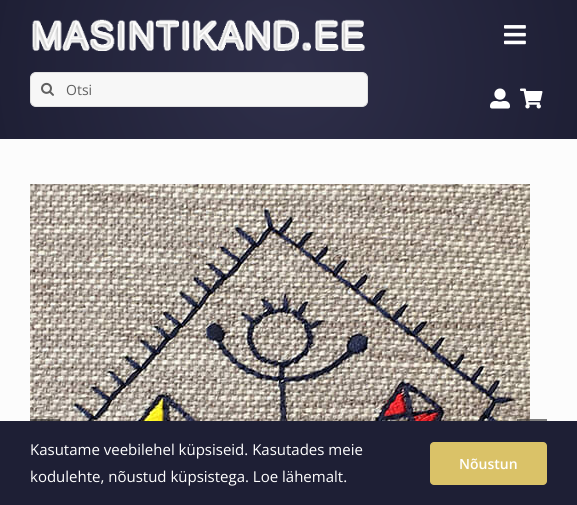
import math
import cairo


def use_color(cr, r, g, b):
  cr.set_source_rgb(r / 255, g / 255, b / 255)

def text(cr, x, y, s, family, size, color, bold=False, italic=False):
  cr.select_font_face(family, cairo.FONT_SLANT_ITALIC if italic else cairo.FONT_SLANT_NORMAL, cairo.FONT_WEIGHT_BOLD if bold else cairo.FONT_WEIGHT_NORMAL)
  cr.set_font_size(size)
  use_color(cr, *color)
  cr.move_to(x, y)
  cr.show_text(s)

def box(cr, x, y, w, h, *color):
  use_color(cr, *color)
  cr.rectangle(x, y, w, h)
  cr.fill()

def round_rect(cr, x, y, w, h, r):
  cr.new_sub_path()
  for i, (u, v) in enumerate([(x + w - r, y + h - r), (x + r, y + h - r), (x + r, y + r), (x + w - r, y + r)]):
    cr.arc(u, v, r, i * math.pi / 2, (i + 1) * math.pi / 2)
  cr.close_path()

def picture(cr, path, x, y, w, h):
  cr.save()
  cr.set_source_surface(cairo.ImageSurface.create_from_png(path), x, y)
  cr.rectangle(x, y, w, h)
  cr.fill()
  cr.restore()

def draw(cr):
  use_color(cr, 252, 252, 252)
  cr.paint()
  gradient = cairo.RadialGradient(289, 70, 0, 289, 70, 297)
  gradient.add_color_stop_rgba(0, 0.184, 0.184, 0.29, 1)
  gradient.add_color_stop_rgba(1, 0.118, 0.122, 0.208, 1)
  cr.set_source(gradient)
  cr.rectangle(0, 0, 577, 139)
  cr.fill()
  picture(cr, "img_01.png", 32, 19, 333, 32)
  picture(cr, "img_02.png", 504, 25, 22, 20)
  use_color(cr, 247, 247, 247)
  round_rect(cr, 30.5, 72.5, 337, 34, 5.5)
  cr.fill_preserve()
  use_color(cr, 226, 226, 226)
  cr.set_line_width(1)
  cr.stroke()
  picture(cr, "img_03.png", 41, 82, 13, 14)
  picture(cr, "img_04.png", 490, 88, 20, 21)
  picture(cr, "img_05.png", 520, 88, 23, 21)
  picture(cr, "img_06.png", 30, 184, 500, 237)
  cr.set_source_rgba(0, 0, 0, 0.5)
  cr.rectangle(30, 419, 30, 2)
  cr.fill()
  cr.rectangle(517, 419, 30, 2)
  cr.fill()
  box(cr, 0, 421, 577, 84, 30, 31, 53)
  use_color(cr, 218, 194, 104)
  round_rect(cr, 430, 442, 117, 43, 4)
  cr.fill()
  text(cr, 66, 95, "Otsi", "Open Sans", 14, (96, 96, 96))
  text(cr, 30, 455, "Kasutame veebilehel küpsiseid. Kasutades meie", "Open Sans", 15, (255, 255, 255))
  text(cr, 30, 482, "kodulehte, nõustud küpsistega. Loe lähemalt.", "Open Sans", 15, (255, 255, 255))
  text(cr, 459, 469, "Nõustun", "Open Sans SemiBold", 14, (255, 255, 255))


surface = cairo.ImageSurface(cairo.FORMAT_RGB24, 577, 505)
cr = cairo.Context(surface)
options = cairo.FontOptions()
options.set_hint_metrics(cairo.HINT_METRICS_OFF)
options.set_hint_style(cairo.HINT_STYLE_NONE)
cr.set_font_options(options)
cr.set_miter_limit(4)
draw(cr)
surface.write_to_png("out.png")
